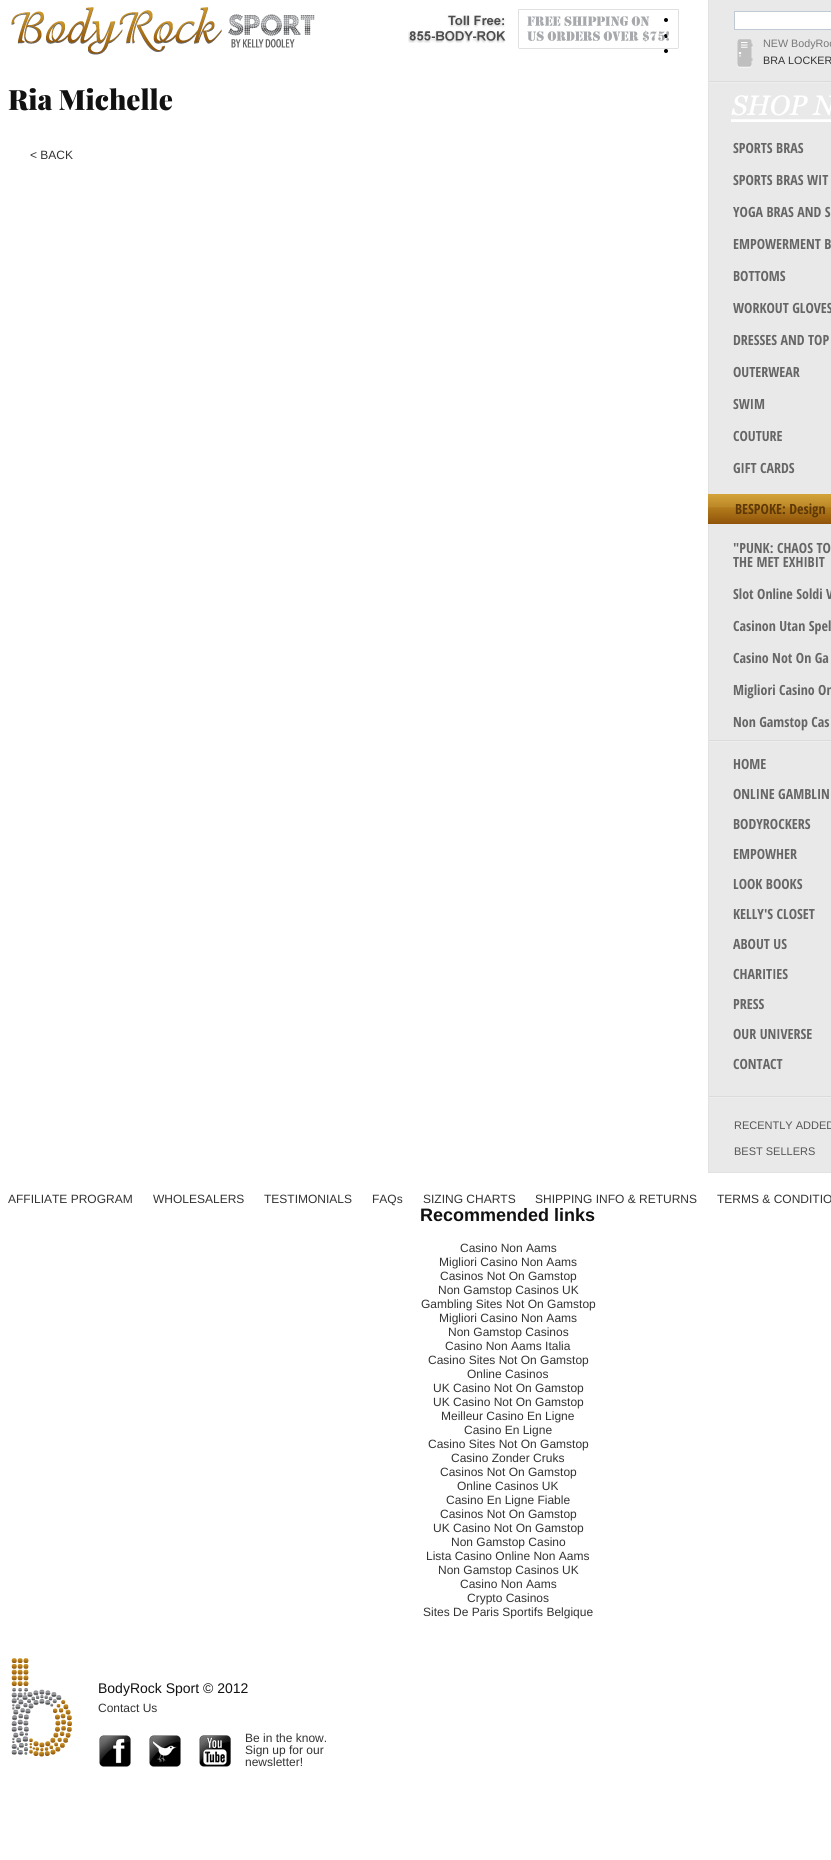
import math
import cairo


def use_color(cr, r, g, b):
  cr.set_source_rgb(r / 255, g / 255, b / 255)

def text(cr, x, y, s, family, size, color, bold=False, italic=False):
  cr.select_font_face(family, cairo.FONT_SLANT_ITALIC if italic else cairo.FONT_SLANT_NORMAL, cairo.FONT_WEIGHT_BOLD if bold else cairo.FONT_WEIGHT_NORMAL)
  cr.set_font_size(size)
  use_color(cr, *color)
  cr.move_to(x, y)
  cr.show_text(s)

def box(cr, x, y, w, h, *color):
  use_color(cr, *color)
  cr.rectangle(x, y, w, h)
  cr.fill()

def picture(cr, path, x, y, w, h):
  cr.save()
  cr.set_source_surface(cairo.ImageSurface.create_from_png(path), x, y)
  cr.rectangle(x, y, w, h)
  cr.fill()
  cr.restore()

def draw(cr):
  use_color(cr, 255, 255, 255)
  cr.paint()
  picture(cr, "img_01.png", 11, 7, 304, 48)
  picture(cr, "img_02.png", 408, 15, 98, 28)
  use_color(cr, 0, 0, 0)
  cr.arc(666, 20, 2, 0, 2 * math.pi)
  cr.fill()
  cr.arc(666, 36, 2, 0, 2 * math.pi)
  cr.fill()
  picture(cr, "img_03.png", 518, 9, 161, 40)
  cr.arc(666, 51, 2, 0, 2 * math.pi)
  cr.fill()
  box(cr, 709, 0, 122, 1172, 233, 233, 233)
  box(cr, 708, 1172, 123, 1, 226, 226, 226)
  box(cr, 708, 0, 1, 1173, 226, 226, 226)
  use_color(cr, 255, 255, 255)
  cr.rectangle(734.5, 11.5, 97, 18)
  cr.fill_preserve()
  use_color(cr, 192, 202, 212)
  cr.set_line_width(1)
  cr.stroke()
  picture(cr, "img_04.png", 737, 39, 16, 29)
  picture(cr, "img_05.png", 709, 81, 122, 2)
  picture(cr, "img_06.png", 731, 95, 100, 27)
  picture(cr, "img_07.png", 708, 494, 123, 30)
  picture(cr, "img_05.png", 709, 740, 122, 2)
  picture(cr, "img_05.png", 709, 1096, 122, 2)
  picture(cr, "img_08.png", 11, 1658, 61, 99)
  picture(cr, "img_09.png", 99, 1735, 32, 32)
  picture(cr, "img_10.png", 149, 1735, 32, 32)
  picture(cr, "img_11.png", 199, 1735, 32, 32)
  text(cr, 8, 110, "Ria Michelle", "Playfair Display Black", 28, (17, 17, 17))
  text(cr, 30, 159, "< BACK", "Liberation Sans", 12, (51, 51, 51))
  text(cr, 763, 47, "NEW BodyRoc", "Liberation Sans", 10.75, (119, 119, 119))
  text(cr, 763, 64, "BRA LOCKER", "Liberation Sans", 10.75, (51, 51, 51))
  text(cr, 733, 153, "SPORTS BRAS", "Open Sans Condensed", 14, (102, 102, 102), bold=True)
  text(cr, 733, 185, "SPORTS BRAS WIT", "Open Sans Condensed", 14, (102, 102, 102), bold=True)
  text(cr, 733, 217, "YOGA BRAS AND S", "Open Sans Condensed", 14, (102, 102, 102), bold=True)
  text(cr, 733, 249, "EMPOWERMENT B", "Open Sans Condensed", 14, (102, 102, 102), bold=True)
  text(cr, 733, 281, "BOTTOMS", "Open Sans Condensed", 14, (102, 102, 102), bold=True)
  text(cr, 733, 313, "WORKOUT GLOVES", "Open Sans Condensed", 14, (102, 102, 102), bold=True)
  text(cr, 733, 345, "DRESSES AND TOP", "Open Sans Condensed", 14, (102, 102, 102), bold=True)
  text(cr, 733, 377, "OUTERWEAR", "Open Sans Condensed", 14, (102, 102, 102), bold=True)
  text(cr, 733, 409, "SWIM", "Open Sans Condensed", 14, (102, 102, 102), bold=True)
  text(cr, 733, 441, "COUTURE", "Open Sans Condensed", 14, (102, 102, 102), bold=True)
  text(cr, 733, 473, "GIFT CARDS", "Open Sans Condensed", 14, (102, 102, 102), bold=True)
  text(cr, 735, 514, "BESPOKE: Design", "Open Sans Condensed", 14, (94, 57, 6), bold=True)
  text(cr, 733, 553, "\"PUNK: CHAOS TO", "Open Sans Condensed", 14, (102, 102, 102), bold=True)
  text(cr, 733, 567, "THE MET EXHIBIT", "Open Sans Condensed", 14, (102, 102, 102), bold=True)
  text(cr, 733, 599, "Slot Online Soldi V", "Open Sans Condensed", 14, (102, 102, 102), bold=True)
  text(cr, 733, 631, "Casinon Utan Spel", "Open Sans Condensed", 14, (102, 102, 102), bold=True)
  text(cr, 733, 663, "Casino Not On Ga", "Open Sans Condensed", 14, (102, 102, 102), bold=True)
  text(cr, 733, 695, "Migliori Casino On", "Open Sans Condensed", 14, (102, 102, 102), bold=True)
  text(cr, 733, 727, "Non Gamstop Cas", "Open Sans Condensed", 14, (102, 102, 102), bold=True)
  text(cr, 733, 769, "HOME", "Open Sans Condensed", 14, (102, 102, 102), bold=True)
  text(cr, 733, 799, "ONLINE GAMBLIN", "Open Sans Condensed", 14, (102, 102, 102), bold=True)
  text(cr, 733, 829, "BODYROCKERS", "Open Sans Condensed", 14, (102, 102, 102), bold=True)
  text(cr, 733, 859, "EMPOWHER", "Open Sans Condensed", 14, (102, 102, 102), bold=True)
  text(cr, 733, 889, "LOOK BOOKS", "Open Sans Condensed", 14, (102, 102, 102), bold=True)
  text(cr, 733, 919, "KELLY'S CLOSET", "Open Sans Condensed", 14, (102, 102, 102), bold=True)
  text(cr, 733, 949, "ABOUT US", "Open Sans Condensed", 14, (102, 102, 102), bold=True)
  text(cr, 733, 979, "CHARITIES", "Open Sans Condensed", 14, (102, 102, 102), bold=True)
  text(cr, 733, 1009, "PRESS", "Open Sans Condensed", 14, (102, 102, 102), bold=True)
  text(cr, 733, 1039, "OUR UNIVERSE", "Open Sans Condensed", 14, (102, 102, 102), bold=True)
  text(cr, 733, 1069, "CONTACT", "Open Sans Condensed", 14, (102, 102, 102), bold=True)
  text(cr, 734, 1129, "RECENTLY ADDED", "Liberation Sans", 11, (85, 85, 85))
  text(cr, 734, 1155, "BEST SELLERS", "Liberation Sans", 11, (85, 85, 85))
  text(cr, 8, 1203, "AFFILIATE PROGRAM", "Liberation Sans", 12, (51, 51, 51))
  text(cr, 153, 1203, "WHOLESALERS", "Liberation Sans", 12, (51, 51, 51))
  text(cr, 264, 1203, "TESTIMONIALS", "Liberation Sans", 12, (51, 51, 51))
  text(cr, 372, 1203, "FAQs", "Liberation Sans", 12, (51, 51, 51))
  text(cr, 423, 1203, "SIZING CHARTS", "Liberation Sans", 12, (51, 51, 51))
  text(cr, 535, 1203, "SHIPPING INFO & RETURNS", "Liberation Sans", 12, (51, 51, 51))
  text(cr, 717, 1203, "TERMS & CONDITIO", "Liberation Sans", 12, (51, 51, 51))
  text(cr, 420, 1221, "Recommended links", "Liberation Sans", 18, (17, 17, 17), bold=True)
  text(cr, 460, 1252, "Casino Non Aams", "Liberation Sans", 12, (51, 51, 51))
  text(cr, 439, 1266, "Migliori Casino Non Aams", "Liberation Sans", 12, (51, 51, 51))
  text(cr, 440, 1280, "Casinos Not On Gamstop", "Liberation Sans", 12, (51, 51, 51))
  text(cr, 438, 1294, "Non Gamstop Casinos UK", "Liberation Sans", 12, (51, 51, 51))
  text(cr, 421, 1308, "Gambling Sites Not On Gamstop", "Liberation Sans", 12, (51, 51, 51))
  text(cr, 439, 1322, "Migliori Casino Non Aams", "Liberation Sans", 12, (51, 51, 51))
  text(cr, 448, 1336, "Non Gamstop Casinos", "Liberation Sans", 12, (51, 51, 51))
  text(cr, 445, 1350, "Casino Non Aams Italia", "Liberation Sans", 12, (51, 51, 51))
  text(cr, 428, 1364, "Casino Sites Not On Gamstop", "Liberation Sans", 12, (51, 51, 51))
  text(cr, 467, 1378, "Online Casinos", "Liberation Sans", 12, (51, 51, 51))
  text(cr, 433, 1392, "UK Casino Not On Gamstop", "Liberation Sans", 12, (51, 51, 51))
  text(cr, 433, 1406, "UK Casino Not On Gamstop", "Liberation Sans", 12, (51, 51, 51))
  text(cr, 441, 1420, "Meilleur Casino En Ligne", "Liberation Sans", 12, (51, 51, 51))
  text(cr, 464, 1434, "Casino En Ligne", "Liberation Sans", 12, (51, 51, 51))
  text(cr, 428, 1448, "Casino Sites Not On Gamstop", "Liberation Sans", 12, (51, 51, 51))
  text(cr, 451, 1462, "Casino Zonder Cruks", "Liberation Sans", 12, (51, 51, 51))
  text(cr, 440, 1476, "Casinos Not On Gamstop", "Liberation Sans", 12, (51, 51, 51))
  text(cr, 457, 1490, "Online Casinos UK", "Liberation Sans", 12, (51, 51, 51))
  text(cr, 446, 1504, "Casino En Ligne Fiable", "Liberation Sans", 12, (51, 51, 51))
  text(cr, 440, 1518, "Casinos Not On Gamstop", "Liberation Sans", 12, (51, 51, 51))
  text(cr, 433, 1532, "UK Casino Not On Gamstop", "Liberation Sans", 12, (51, 51, 51))
  text(cr, 451, 1546, "Non Gamstop Casino", "Liberation Sans", 12, (51, 51, 51))
  text(cr, 426, 1560, "Lista Casino Online Non Aams", "Liberation Sans", 12, (51, 51, 51))
  text(cr, 438, 1574, "Non Gamstop Casinos UK", "Liberation Sans", 12, (51, 51, 51))
  text(cr, 460, 1588, "Casino Non Aams", "Liberation Sans", 12, (51, 51, 51))
  text(cr, 467, 1602, "Crypto Casinos", "Liberation Sans", 12, (51, 51, 51))
  text(cr, 423, 1616, "Sites De Paris Sportifs Belgique", "Liberation Sans", 12, (51, 51, 51))
  text(cr, 98, 1693, "BodyRock Sport © 2012", "Liberation Sans", 14, (17, 17, 17))
  text(cr, 98, 1712, "Contact Us", "Liberation Sans", 12, (51, 51, 51))
  text(cr, 245, 1742, "Be in the know.", "Liberation Sans", 12, (51, 51, 51))
  text(cr, 245, 1754, "Sign up for our", "Liberation Sans", 12, (51, 51, 51))
  text(cr, 245, 1766, "newsletter!", "Liberation Sans", 12, (51, 51, 51))


surface = cairo.ImageSurface(cairo.FORMAT_RGB24, 831, 1860)
cr = cairo.Context(surface)
options = cairo.FontOptions()
options.set_hint_metrics(cairo.HINT_METRICS_OFF)
options.set_hint_style(cairo.HINT_STYLE_NONE)
cr.set_font_options(options)
cr.set_miter_limit(4)
draw(cr)
surface.write_to_png("out.png")
